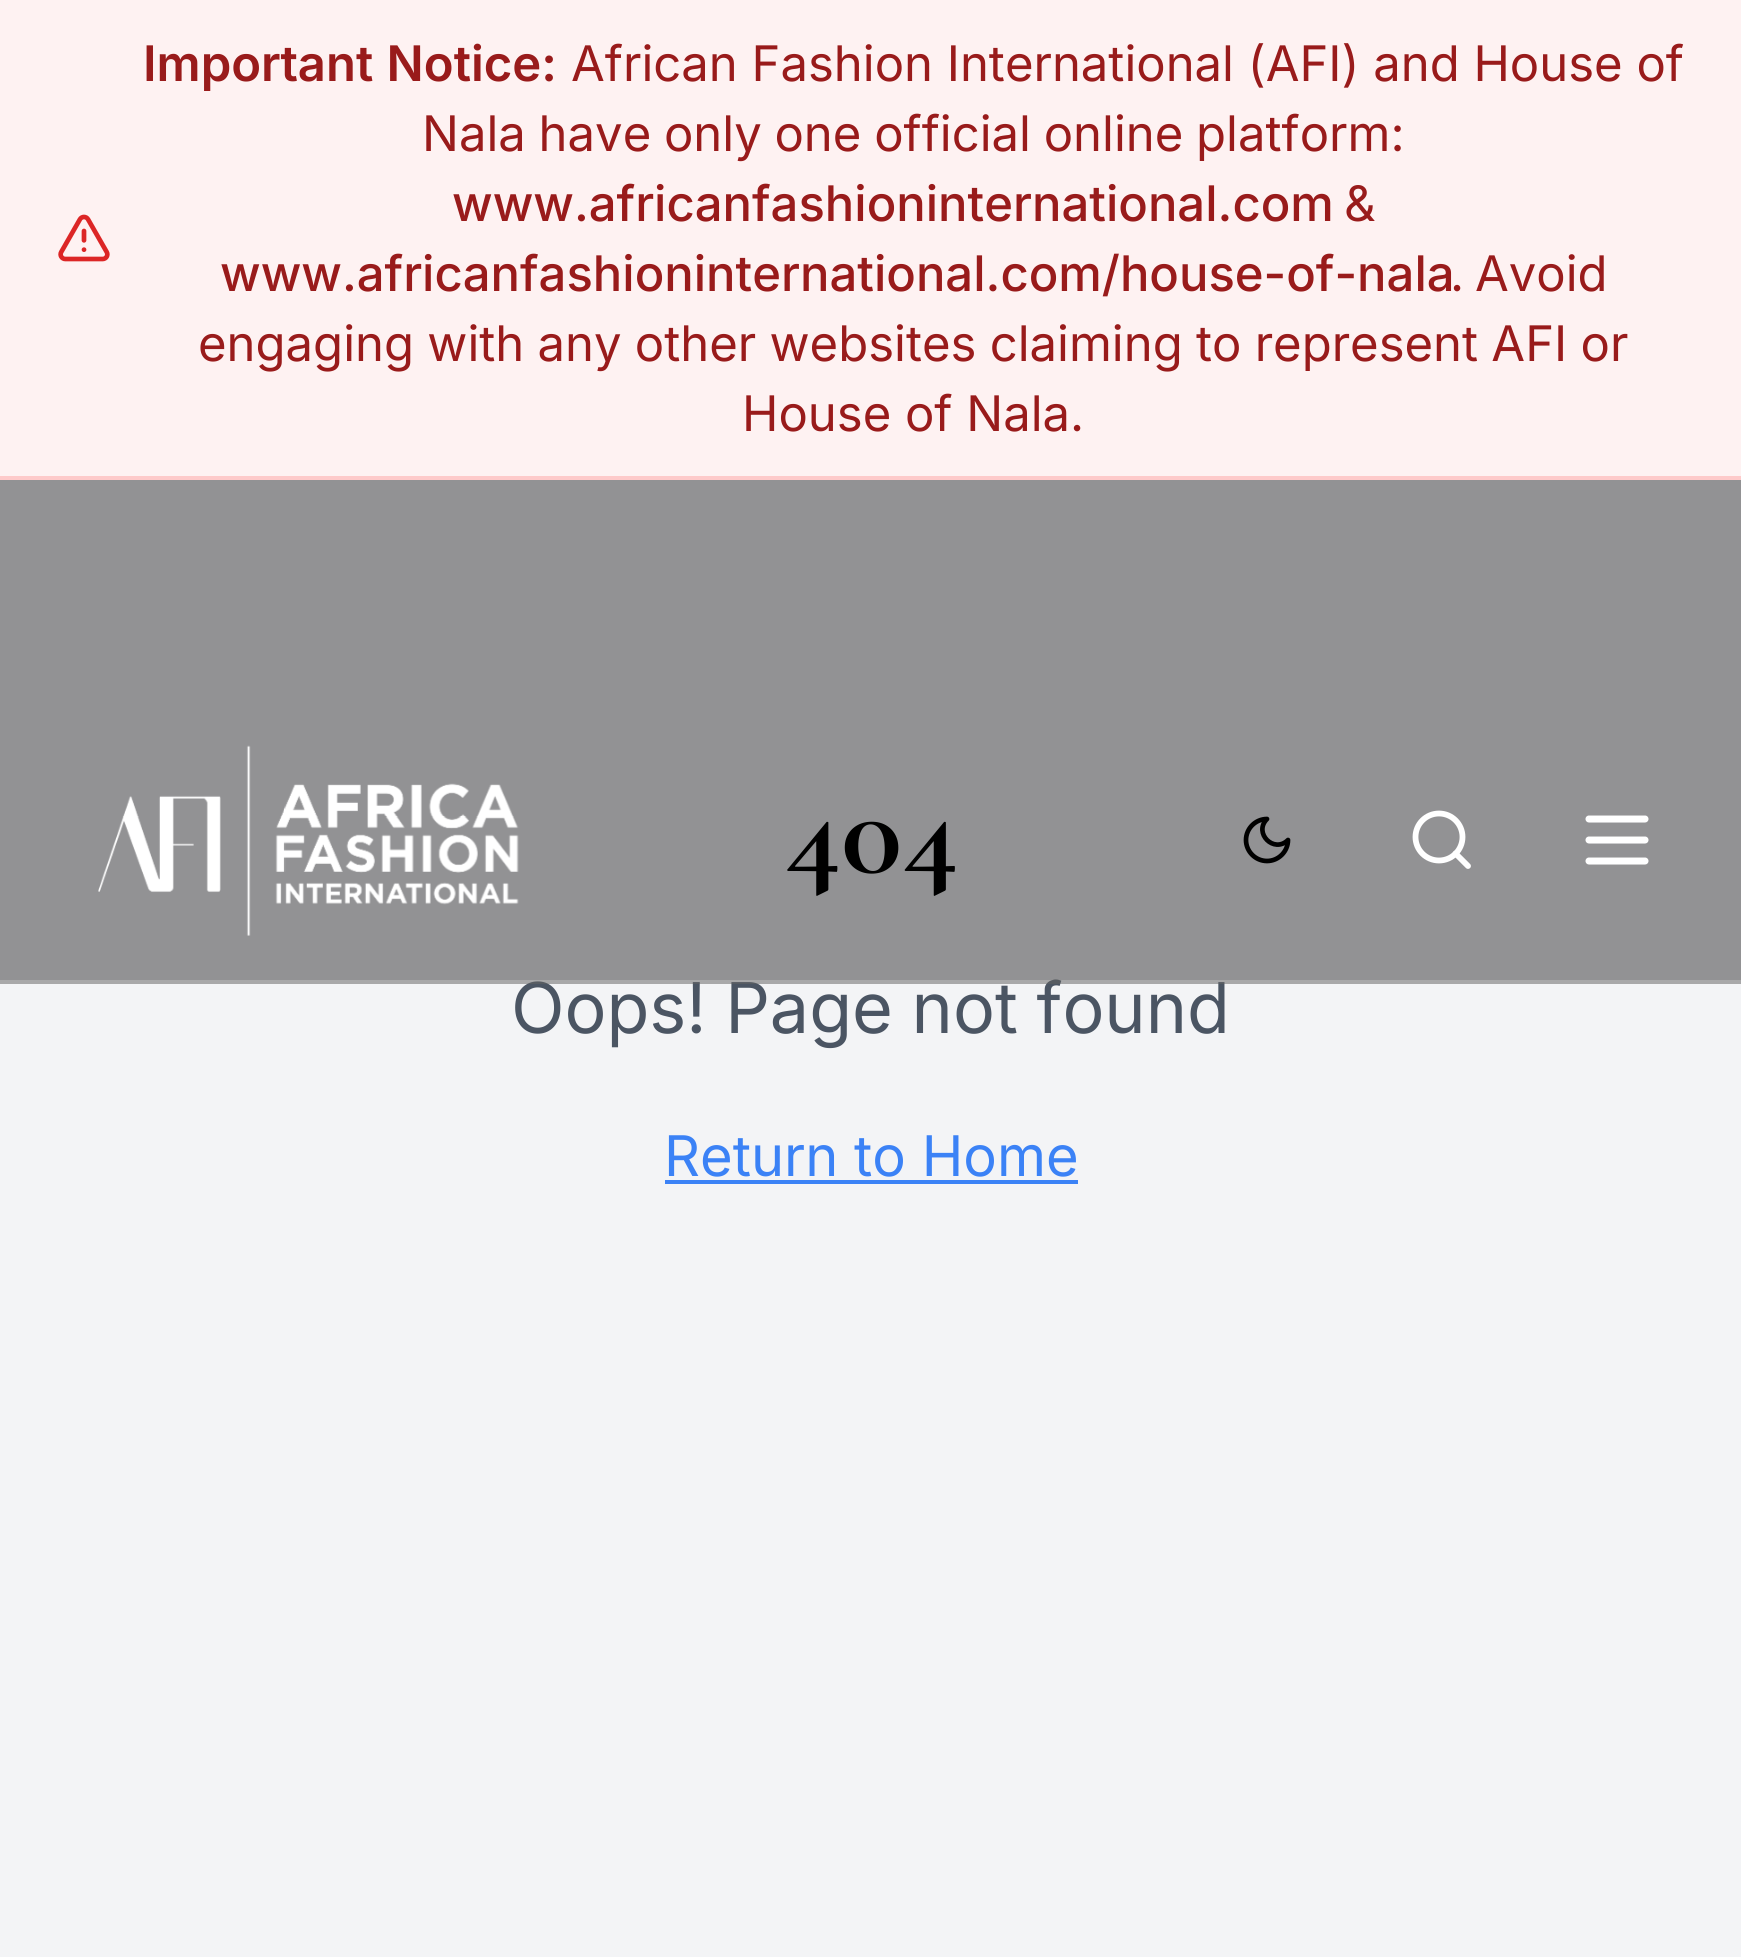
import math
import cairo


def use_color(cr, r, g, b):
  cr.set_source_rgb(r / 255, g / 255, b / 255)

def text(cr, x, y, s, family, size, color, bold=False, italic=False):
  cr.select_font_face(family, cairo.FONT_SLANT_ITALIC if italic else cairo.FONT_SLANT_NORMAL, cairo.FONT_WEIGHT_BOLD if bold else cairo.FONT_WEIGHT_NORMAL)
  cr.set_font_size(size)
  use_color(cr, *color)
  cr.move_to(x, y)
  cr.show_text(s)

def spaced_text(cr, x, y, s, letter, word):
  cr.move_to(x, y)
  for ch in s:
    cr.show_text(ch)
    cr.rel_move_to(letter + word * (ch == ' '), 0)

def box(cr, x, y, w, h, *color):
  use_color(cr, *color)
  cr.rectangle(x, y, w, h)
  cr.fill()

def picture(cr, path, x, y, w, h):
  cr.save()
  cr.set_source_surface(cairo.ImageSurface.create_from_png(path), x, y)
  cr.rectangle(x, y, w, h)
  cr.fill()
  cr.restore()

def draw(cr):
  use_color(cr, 243, 244, 246)
  cr.paint()
  box(cr, 0, 0, 1741, 476, 254, 242, 242)
  box(cr, 0, 476, 1741, 4, 254, 202, 202)
  picture(cr, "img_01.png", 58, 214, 52, 48)
  box(cr, 665, 1180, 413, 4, 59, 130, 246)
  cr.select_font_face("Inter SemiBold")
  cr.set_font_size(49)
  use_color(cr, 153, 27, 27)
  spaced_text(cr, 143, 81, "Important Notice:", 0, 1)
  text(cr, 571, 81, "African Fashion International (AFI) and House of", "Inter", 49, (153, 27, 27))
  spaced_text(cr, 422, 151, "Nala have only one official online platform:", 0, -1)
  text(cr, 452, 221, "www.africanfashioninternational.com", "Inter Medium", 49, (153, 27, 27))
  text(cr, 1344, 221, "&", "Inter", 49, (153, 27, 27))
  text(cr, 220, 291, "www.africanfashioninternational.com/house-of-nala", "Inter Medium", 49, (153, 27, 27))
  cr.select_font_face("Inter")
  spaced_text(cr, 1450, 291, ". Avoid", 0, -3)
  spaced_text(cr, 198, 361, "engaging with any other websites claiming to represent AFI or", 0, -0.5)
  text(cr, 742, 431, "House of Nala.", "Inter", 49, (153, 27, 27))
  text(cr, 784, 872, "404", "Cormorant Garamond", 126, (0, 0, 0), bold=True)
  cr.select_font_face("Inter")
  cr.set_font_size(70)
  use_color(cr, 75, 85, 99)
  spaced_text(cr, 511, 1033, "Oops! Page not found", 0, -1)
  cr.set_source_rgba(0, 0, 0, 0.4)
  cr.rectangle(0, 480, 1741, 504)
  cr.fill()
  cr.new_path()
  cr.move_to(1589, 861)
  cr.line_to(1645, 861)
  use_color(cr, 255, 255, 255)
  cr.set_line_width(7)
  cr.set_line_cap(cairo.LINE_CAP_ROUND)
  cr.set_line_join(cairo.LINE_JOIN_ROUND)
  cr.stroke()
  cr.new_path()
  cr.move_to(1589, 819)
  cr.line_to(1645, 819)
  cr.stroke()
  cr.new_path()
  cr.move_to(1589, 840)
  cr.line_to(1645, 840)
  cr.stroke()
  cr.arc(1439, 837, 23.5, 0, 2 * math.pi)
  cr.set_line_width(5.8)
  cr.set_line_cap(cairo.LINE_CAP_BUTT)
  cr.set_line_join(cairo.LINE_JOIN_MITER)
  cr.stroke()
  cr.new_path()
  cr.move_to(1468, 866)
  cr.line_to(1455.5, 853.5)
  cr.set_line_cap(cairo.LINE_CAP_ROUND)
  cr.set_line_join(cairo.LINE_JOIN_ROUND)
  cr.stroke()
  cr.new_path()
  cr.move_to(1267, 819)
  cr.curve_to(1253, 833, 1274, 854, 1288, 840)
  cr.curve_to(1288, 851.5, 1278.5, 861, 1267, 861)
  cr.curve_to(1255.5, 861, 1246, 851.5, 1246, 840)
  cr.curve_to(1246, 828.5, 1255.5, 819, 1267, 819)
  cr.close_path()
  use_color(cr, 0, 0, 0)
  cr.set_line_width(4.7)
  cr.stroke()
  picture(cr, "img_02.png", 98, 745, 421, 191)
  cr.set_source_rgba(1, 1, 1, 0.2)
  cr.rectangle(0, 980, 1741, 4)
  cr.fill()
  text(cr, 664, 1176, "Return to Home", "Inter", 56, (59, 130, 246))


surface = cairo.ImageSurface(cairo.FORMAT_RGB24, 1741, 1957)
cr = cairo.Context(surface)
options = cairo.FontOptions()
options.set_hint_metrics(cairo.HINT_METRICS_OFF)
options.set_hint_style(cairo.HINT_STYLE_NONE)
cr.set_font_options(options)
cr.set_miter_limit(4)
draw(cr)
surface.write_to_png("out.png")
